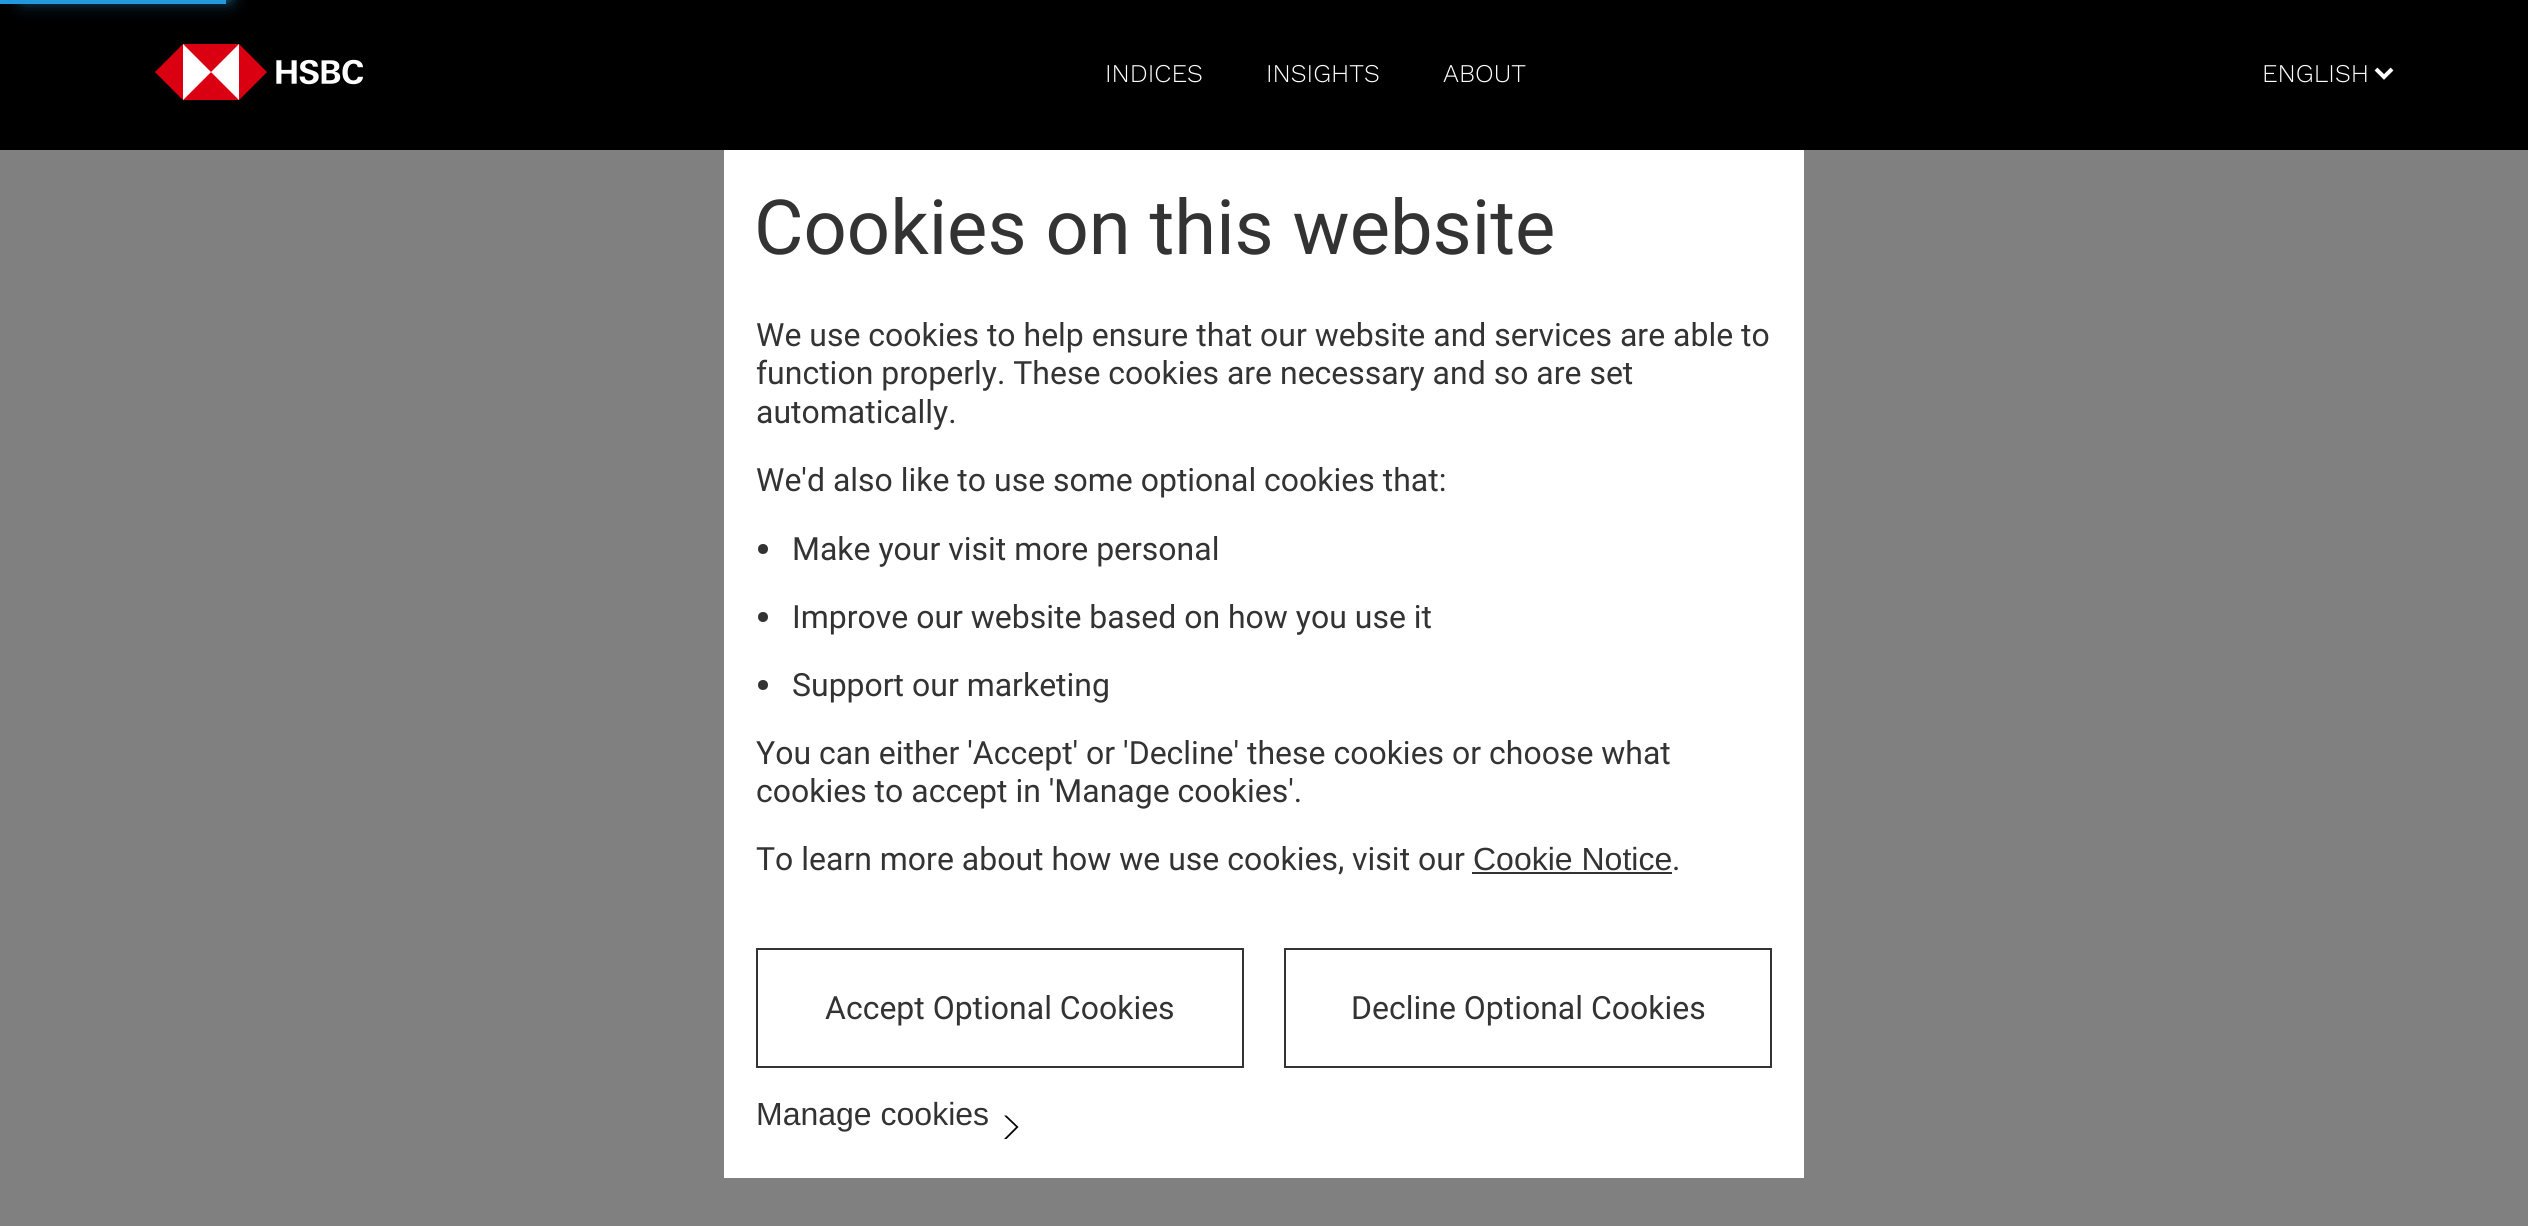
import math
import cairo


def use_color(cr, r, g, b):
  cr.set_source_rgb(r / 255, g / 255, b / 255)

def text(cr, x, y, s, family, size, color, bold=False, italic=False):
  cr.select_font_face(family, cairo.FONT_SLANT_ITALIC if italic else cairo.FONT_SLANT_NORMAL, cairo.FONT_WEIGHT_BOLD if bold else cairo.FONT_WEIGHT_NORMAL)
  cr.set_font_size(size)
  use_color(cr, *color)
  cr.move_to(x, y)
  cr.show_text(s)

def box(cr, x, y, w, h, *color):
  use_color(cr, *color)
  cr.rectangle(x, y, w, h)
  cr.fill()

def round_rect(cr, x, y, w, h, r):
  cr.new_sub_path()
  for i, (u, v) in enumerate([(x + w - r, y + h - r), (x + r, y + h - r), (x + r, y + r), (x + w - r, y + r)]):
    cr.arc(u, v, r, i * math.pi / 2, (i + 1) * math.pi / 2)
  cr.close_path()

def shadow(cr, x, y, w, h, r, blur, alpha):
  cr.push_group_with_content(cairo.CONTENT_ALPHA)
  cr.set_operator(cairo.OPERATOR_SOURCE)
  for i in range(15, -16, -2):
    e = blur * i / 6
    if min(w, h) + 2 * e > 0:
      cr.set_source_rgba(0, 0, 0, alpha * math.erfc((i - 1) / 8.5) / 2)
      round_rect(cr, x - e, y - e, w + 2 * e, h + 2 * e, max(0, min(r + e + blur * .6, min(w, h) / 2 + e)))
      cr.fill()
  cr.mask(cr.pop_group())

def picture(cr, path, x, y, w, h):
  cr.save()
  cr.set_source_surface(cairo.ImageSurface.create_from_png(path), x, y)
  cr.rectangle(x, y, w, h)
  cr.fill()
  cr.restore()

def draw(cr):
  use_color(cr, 128, 128, 128)
  cr.paint()
  box(cr, 0, 0, 2528, 150, 0, 0, 0)
  box(cr, 0, 0, 226, 4, 34, 153, 221)
  use_color(cr, 34, 153, 221)
  shadow(cr, 26, -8, 200, 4, 0, 5, 1)
  shadow(cr, 26, -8, 200, 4, 0, 10, 1)
  picture(cr, "img_01.png", 155, 44, 208, 56)
  cr.new_path()
  cr.move_to(2376, 69)
  cr.line_to(2384, 77)
  cr.line_to(2392, 69)
  use_color(cr, 255, 255, 255)
  cr.set_line_width(4)
  cr.stroke()
  box(cr, 724, 150, 1080, 1028, 255, 255, 255)
  use_color(cr, 51, 51, 51)
  cr.arc(763, 549, 5, 0, 2 * math.pi)
  cr.fill()
  cr.arc(763, 617, 5, 0, 2 * math.pi)
  cr.fill()
  cr.arc(763, 685, 5, 0, 2 * math.pi)
  cr.fill()
  box(cr, 1472, 872, 200, 2, 51, 51, 51)
  cr.rectangle(757, 949, 486, 118)
  cr.set_line_width(2)
  cr.stroke()
  cr.rectangle(1285, 949, 486, 118)
  cr.stroke()
  use_color(cr, 0, 0, 0)
  cr.new_path()
  cr.move_to(1004, 1139)
  cr.line_to(1016, 1127)
  cr.line_to(1004, 1115.5)
  cr.line_to(1006.5, 1115.5)
  cr.line_to(1018.5, 1127)
  cr.line_to(1006.5, 1139)
  cr.close_path()
  cr.fill()
  text(cr, 1105, 82, "INDICES", "Work Sans Light", 25.5, (255, 255, 255))
  text(cr, 1266, 82, "INSIGHTS", "Work Sans Light", 25.5, (255, 255, 255))
  text(cr, 1443, 82, "ABOUT", "Work Sans Light", 25.5, (255, 255, 255))
  text(cr, 2262, 82, "ENGLISH", "Work Sans Light", 25.5, (255, 255, 255))
  text(cr, 754, 254, "Cookies on this website", "Roboto", 76, (51, 51, 51))
  text(cr, 756, 346, "We use cookies to help ensure that our website and services are able to", "Roboto", 32, (51, 51, 51))
  text(cr, 756, 384, "function properly. These cookies are necessary and so are set", "Roboto", 32, (51, 51, 51))
  text(cr, 756, 423, "automatically.", "Roboto", 32, (51, 51, 51))
  text(cr, 756, 491, "We'd also like to use some optional cookies that:", "Roboto", 32, (51, 51, 51))
  text(cr, 792, 560, "Make your visit more personal", "Roboto", 32, (51, 51, 51))
  text(cr, 792, 628, "Improve our website based on how you use it", "Roboto", 32, (51, 51, 51))
  text(cr, 792, 696, "Support our marketing", "Roboto", 32, (51, 51, 51))
  text(cr, 756, 764, "You can either 'Accept' or 'Decline' these cookies or choose what", "Roboto", 32, (51, 51, 51))
  text(cr, 756, 802, "cookies to accept in 'Manage cookies'.", "Roboto", 32, (51, 51, 51))
  text(cr, 756, 870, "To learn more about how we use cookies, visit our", "Roboto", 32, (51, 51, 51))
  text(cr, 1473, 870, "Cookie Notice", "Liberation Sans", 32, (51, 51, 51))
  text(cr, 1672, 870, ".", "Roboto", 32, (51, 51, 51))
  text(cr, 825, 1019, "Accept Optional Cookies", "Roboto", 32, (51, 51, 51))
  text(cr, 1351, 1019, "Decline Optional Cookies", "Roboto", 32, (51, 51, 51))
  text(cr, 756, 1125, "Manage cookies", "Liberation Sans", 32, (51, 51, 51))


surface = cairo.ImageSurface(cairo.FORMAT_RGB24, 2528, 1226)
cr = cairo.Context(surface)
options = cairo.FontOptions()
options.set_hint_metrics(cairo.HINT_METRICS_OFF)
options.set_hint_style(cairo.HINT_STYLE_NONE)
cr.set_font_options(options)
cr.set_miter_limit(4)
draw(cr)
surface.write_to_png("out.png")
